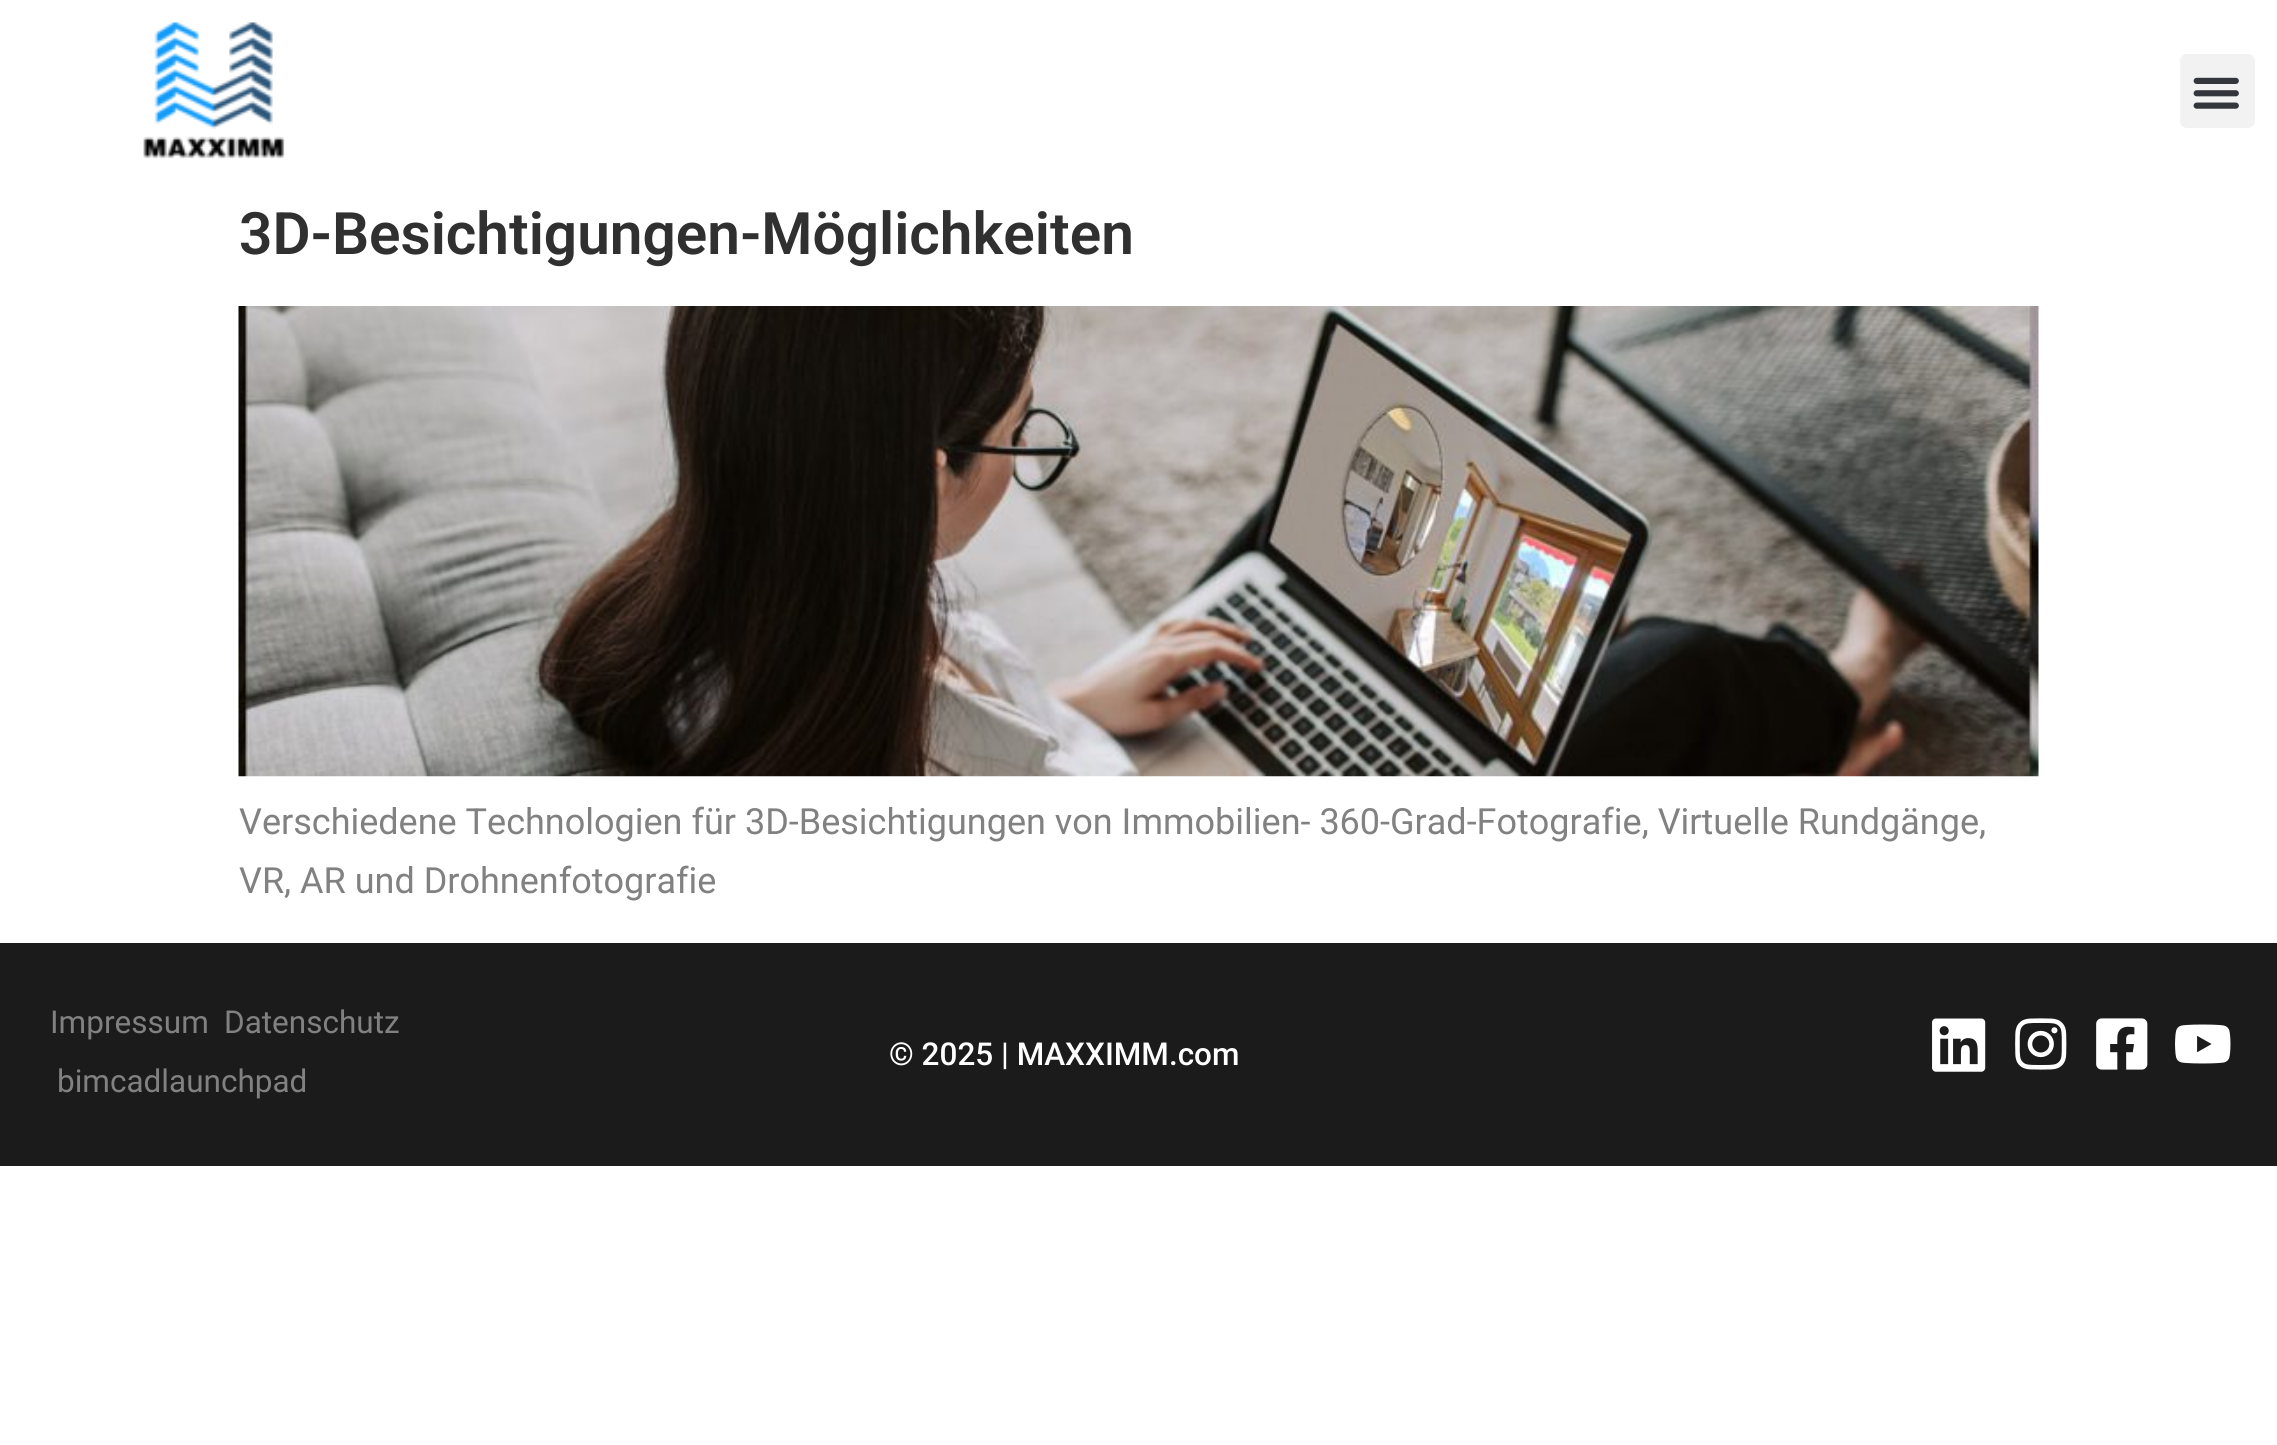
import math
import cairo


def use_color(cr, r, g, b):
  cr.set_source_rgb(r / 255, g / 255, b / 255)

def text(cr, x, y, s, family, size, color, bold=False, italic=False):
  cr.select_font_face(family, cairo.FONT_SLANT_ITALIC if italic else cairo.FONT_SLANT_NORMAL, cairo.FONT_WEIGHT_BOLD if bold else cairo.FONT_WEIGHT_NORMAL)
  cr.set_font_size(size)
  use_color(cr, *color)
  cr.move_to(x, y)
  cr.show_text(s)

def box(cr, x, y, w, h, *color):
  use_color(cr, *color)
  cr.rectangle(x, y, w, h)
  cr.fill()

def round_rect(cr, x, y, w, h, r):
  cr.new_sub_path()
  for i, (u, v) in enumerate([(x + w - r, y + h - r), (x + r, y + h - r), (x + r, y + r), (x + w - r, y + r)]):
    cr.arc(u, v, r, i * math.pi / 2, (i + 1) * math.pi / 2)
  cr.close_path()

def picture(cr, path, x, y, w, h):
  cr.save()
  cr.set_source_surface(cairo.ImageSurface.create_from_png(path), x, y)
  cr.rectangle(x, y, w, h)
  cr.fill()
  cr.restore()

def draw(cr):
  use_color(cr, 255, 255, 255)
  cr.paint()
  picture(cr, "img_01.png", 143, 22, 142, 137)
  use_color(cr, 242, 242, 242)
  round_rect(cr, 2180, 54, 75, 74, 7)
  cr.fill()
  picture(cr, "img_02.png", 2193, 77, 46, 32)
  picture(cr, "img_03.png", 238, 306, 1801, 471)
  box(cr, 0, 943, 2277, 223, 27, 27, 27)
  picture(cr, "img_04.png", 1932, 1018, 54, 54)
  picture(cr, "img_05.png", 2015, 1018, 52, 52)
  picture(cr, "img_06.png", 2096, 1018, 52, 52)
  picture(cr, "img_07.png", 2175, 1024, 56, 40)
  text(cr, 239, 254, "3D-Besichtigungen-Möglichkeiten", "Roboto SemiBold", 58.5, (48, 48, 48))
  text(cr, 239, 834, "Verschiedene Technologien für 3D-Besichtigungen von Immobilien- 360-Grad-Fotografie, Virtuelle Rundgänge,", "Roboto", 36, (129, 129, 129))
  text(cr, 239, 893, "VR, AR und Drohnenfotografie", "Roboto", 36, (129, 129, 129))
  text(cr, 50, 1033, "Impressum", "Roboto", 31.5, (129, 129, 129))
  text(cr, 224, 1033, "Datenschutz", "Roboto", 31.5, (129, 129, 129))
  text(cr, 57, 1092, "bimcadlaunchpad", "Roboto", 31.5, (129, 129, 129))
  text(cr, 889, 1065, "© 2025 | MAXXIMM.com", "Roboto Medium", 31.5, (255, 255, 255))


surface = cairo.ImageSurface(cairo.FORMAT_RGB24, 2277, 1445)
cr = cairo.Context(surface)
options = cairo.FontOptions()
options.set_hint_metrics(cairo.HINT_METRICS_OFF)
options.set_hint_style(cairo.HINT_STYLE_NONE)
cr.set_font_options(options)
cr.set_miter_limit(4)
draw(cr)
surface.write_to_png("out.png")
